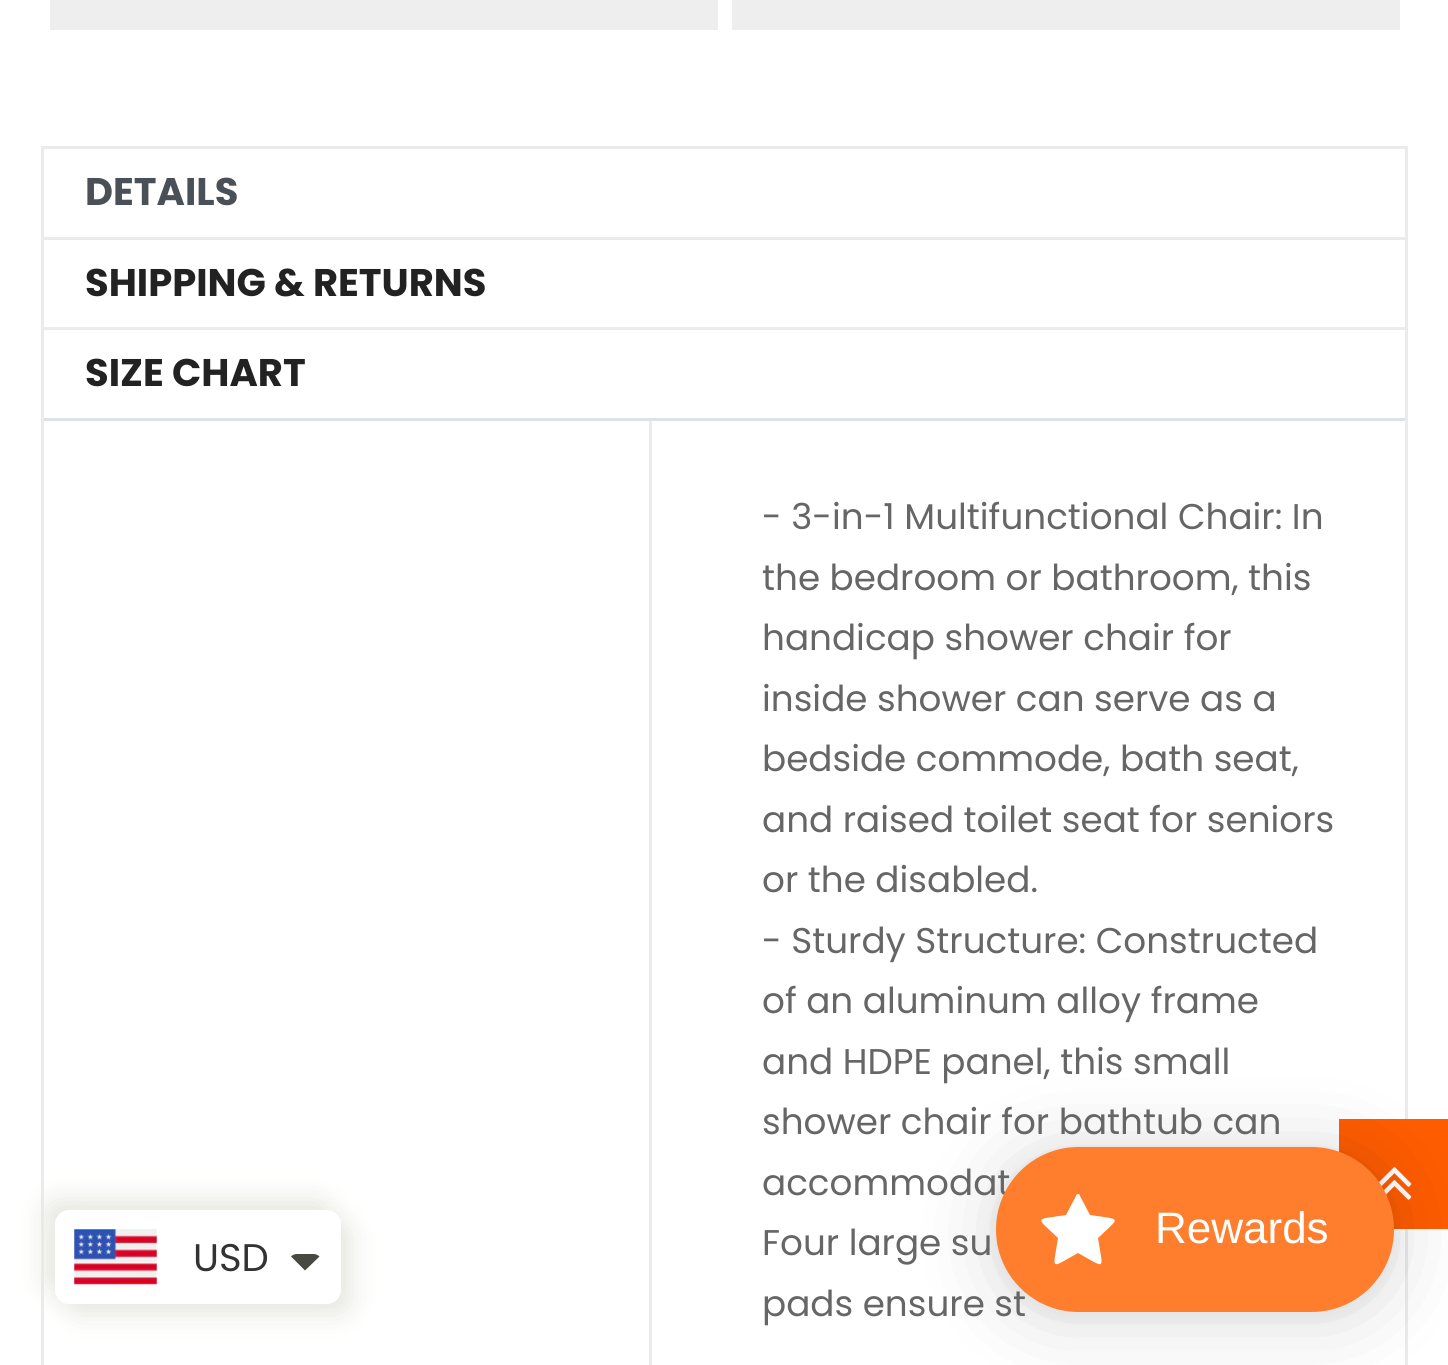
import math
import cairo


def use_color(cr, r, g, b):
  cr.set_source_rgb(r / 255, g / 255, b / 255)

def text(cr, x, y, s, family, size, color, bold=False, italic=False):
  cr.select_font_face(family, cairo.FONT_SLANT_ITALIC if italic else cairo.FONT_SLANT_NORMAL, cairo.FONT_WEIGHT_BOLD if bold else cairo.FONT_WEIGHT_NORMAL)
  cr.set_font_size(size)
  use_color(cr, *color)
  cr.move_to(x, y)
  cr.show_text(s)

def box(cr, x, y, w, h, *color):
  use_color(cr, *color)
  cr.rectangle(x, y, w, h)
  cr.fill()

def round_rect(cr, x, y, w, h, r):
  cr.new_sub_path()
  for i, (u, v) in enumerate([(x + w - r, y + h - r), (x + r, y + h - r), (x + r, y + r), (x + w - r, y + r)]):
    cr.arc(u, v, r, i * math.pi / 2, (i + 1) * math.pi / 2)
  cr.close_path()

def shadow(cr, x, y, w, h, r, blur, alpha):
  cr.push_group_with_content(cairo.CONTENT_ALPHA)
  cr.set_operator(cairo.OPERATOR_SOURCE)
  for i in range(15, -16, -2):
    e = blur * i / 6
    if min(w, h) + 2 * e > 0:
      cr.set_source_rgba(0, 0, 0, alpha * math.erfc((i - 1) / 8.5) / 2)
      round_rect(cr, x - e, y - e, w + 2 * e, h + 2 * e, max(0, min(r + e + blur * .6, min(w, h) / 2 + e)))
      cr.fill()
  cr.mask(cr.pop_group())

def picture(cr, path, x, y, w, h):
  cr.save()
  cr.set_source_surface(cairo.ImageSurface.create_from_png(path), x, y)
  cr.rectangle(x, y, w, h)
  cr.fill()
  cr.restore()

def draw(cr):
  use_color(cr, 255, 255, 255)
  cr.paint()
  box(cr, 50, 0, 668, 30, 238, 238, 238)
  box(cr, 732, 0, 668, 30, 238, 238, 238)
  cr.rectangle(42.5, 147.5, 1364, 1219)
  use_color(cr, 235, 235, 235)
  cr.set_line_width(3)
  cr.stroke()
  box(cr, 44, 418, 1361, 3, 222, 226, 230)
  box(cr, 44, 237, 1361, 3, 235, 235, 235)
  box(cr, 44, 327, 1361, 3, 235, 235, 235)
  box(cr, 649, 421, 3, 944, 235, 235, 235)
  box(cr, 1339, 1119, 109, 110, 255, 92, 0)
  picture(cr, "img_01.png", 1379, 1167, 33, 33)
  use_color(cr, 0, 0, 0)
  shadow(cr, 996, 1152, 398, 165, 82.5, 41, 0.15)
  shadow(cr, 996, 1150, 398, 165, 82.5, 8, 0.05)
  use_color(cr, 232, 232, 226)
  shadow(cr, 44, 1199, 286, 94, 14, 12.5, 1)
  shadow(cr, 66, 1221, 286, 94, 14, 12.5, 1)
  use_color(cr, 255, 255, 255)
  round_rect(cr, 55, 1210, 286, 94, 14)
  cr.fill()
  picture(cr, "img_02.png", 74, 1229, 83, 56)
  use_color(cr, 71, 73, 66)
  cr.new_path()
  cr.move_to(297, 1254)
  cr.line_to(313.5, 1254)
  cr.curve_to(316, 1254, 318, 1255, 319.5, 1256.5)
  cr.line_to(305, 1270.5)
  cr.line_to(291, 1256.5)
  cr.curve_to(292.5, 1255, 294.5, 1254, 297, 1254)
  cr.close_path()
  cr.fill()
  text(cr, 85, 205, "DETAILS", "Poppins", 38.5, (73, 80, 87), bold=True)
  text(cr, 85, 296, "SHIPPING & RETURNS", "Poppins", 38.5, (34, 34, 34), bold=True)
  text(cr, 85, 386, "SIZE CHART", "Poppins", 38.5, (34, 34, 34), bold=True)
  text(cr, 762, 529, "- 3-in-1 Multifunctional Chair: In", "Poppins", 35.75, (102, 102, 102))
  text(cr, 762, 590, "the bedroom or bathroom, this", "Poppins", 35.75, (102, 102, 102))
  text(cr, 762, 650, "handicap shower chair for", "Poppins", 35.75, (102, 102, 102))
  text(cr, 762, 711, "inside shower can serve as a", "Poppins", 35.75, (102, 102, 102))
  text(cr, 762, 771, "bedside commode, bath seat,", "Poppins", 35.75, (102, 102, 102))
  text(cr, 762, 832, "and raised toilet seat for seniors", "Poppins", 35.75, (102, 102, 102))
  text(cr, 762, 892, "or the disabled.", "Poppins", 35.75, (102, 102, 102))
  text(cr, 762, 953, "- Sturdy Structure: Constructed", "Poppins", 35.75, (102, 102, 102))
  text(cr, 762, 1013, "of an aluminum alloy frame", "Poppins", 35.75, (102, 102, 102))
  text(cr, 762, 1074, "and HDPE panel, this small", "Poppins", 35.75, (102, 102, 102))
  text(cr, 762, 1134, "shower chair for bathtub can", "Poppins", 35.75, (102, 102, 102))
  text(cr, 762, 1195, "accommodat", "Poppins", 35.75, (102, 102, 102))
  text(cr, 762, 1255, "Four large su", "Poppins", 35.75, (102, 102, 102))
  text(cr, 762, 1316, "pads ensure st", "Poppins", 35.75, (102, 102, 102))
  use_color(cr, 254, 126, 45)
  round_rect(cr, 996, 1147, 398, 165, 82.5)
  cr.fill()
  use_color(cr, 255, 255, 255)
  cr.new_path()
  cr.move_to(1078, 1194)
  cr.curve_to(1077, 1194, 1076, 1195, 1076, 1196)
  cr.line_to(1066, 1215)
  cr.curve_to(1034, 1220, 1035, 1216, 1058, 1238)
  cr.curve_to(1053, 1271, 1049, 1269, 1078, 1253)
  cr.curve_to(1107, 1269, 1103, 1271, 1098, 1238)
  cr.curve_to(1121, 1216, 1122, 1220, 1090, 1215)
  cr.line_to(1080, 1196)
  cr.curve_to(1080, 1195, 1079, 1194, 1078, 1194)
  cr.close_path()
  cr.fill()
  text(cr, 1155, 1243, "Rewards", "Liberation Sans", 44, (255, 255, 255))
  text(cr, 193, 1271, "USD", "Poppins", 38.5, (51, 51, 51))


surface = cairo.ImageSurface(cairo.FORMAT_RGB24, 1448, 1365)
cr = cairo.Context(surface)
options = cairo.FontOptions()
options.set_hint_metrics(cairo.HINT_METRICS_OFF)
options.set_hint_style(cairo.HINT_STYLE_NONE)
cr.set_font_options(options)
cr.set_miter_limit(4)
draw(cr)
surface.write_to_png("out.png")
